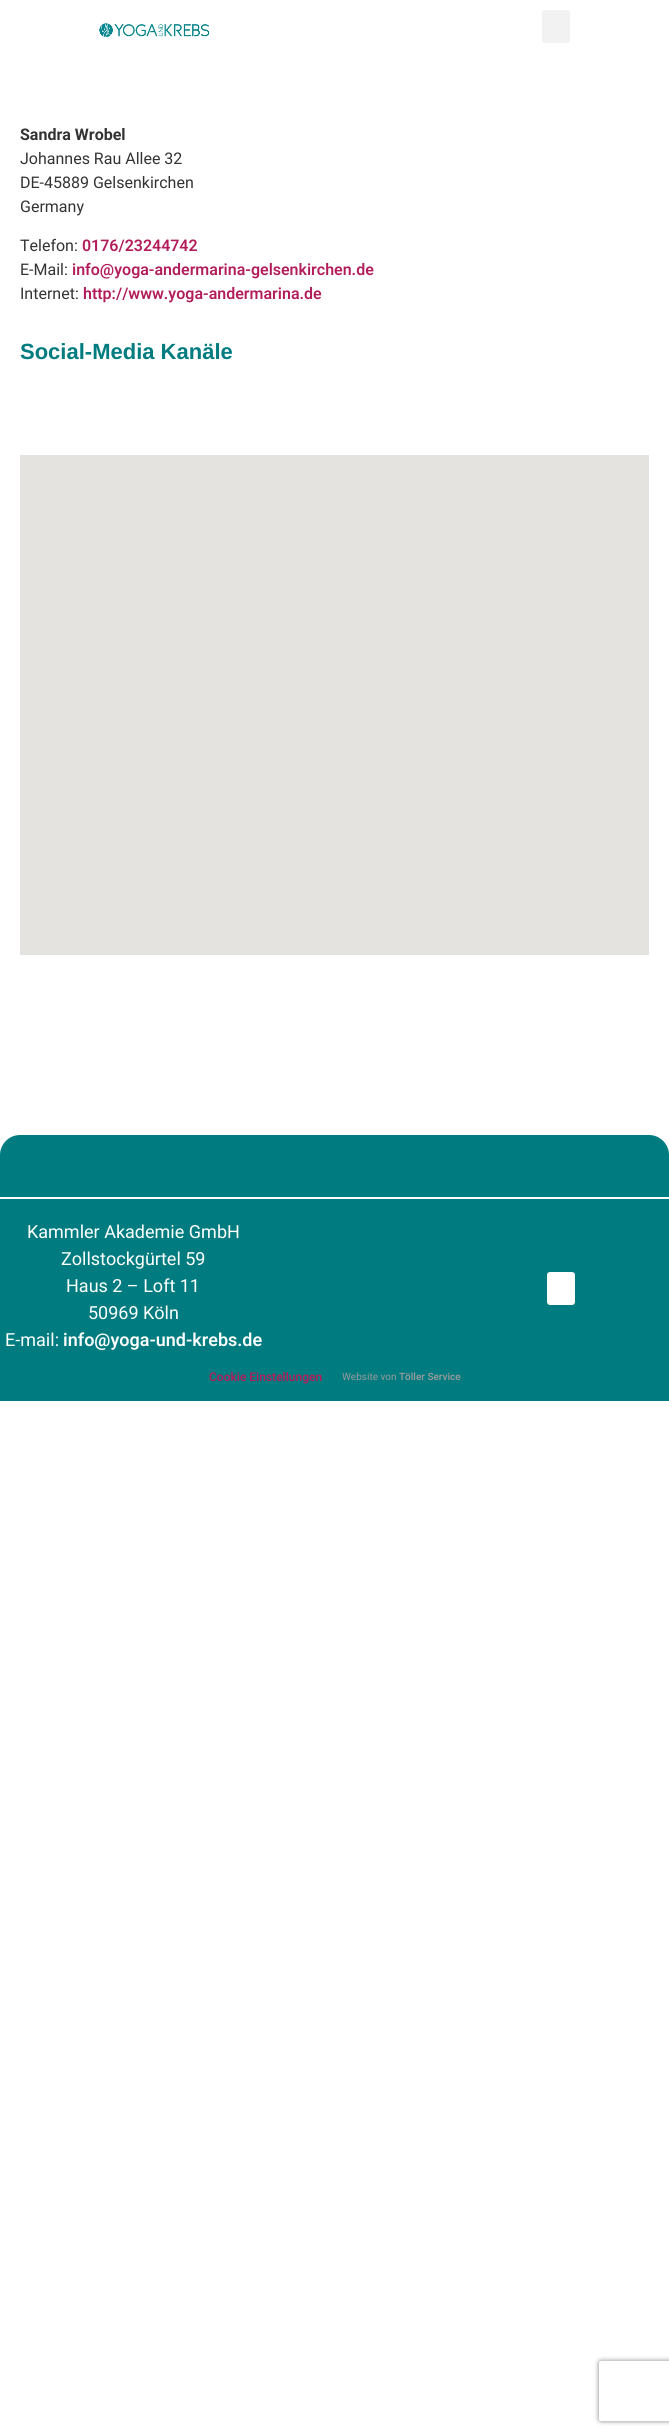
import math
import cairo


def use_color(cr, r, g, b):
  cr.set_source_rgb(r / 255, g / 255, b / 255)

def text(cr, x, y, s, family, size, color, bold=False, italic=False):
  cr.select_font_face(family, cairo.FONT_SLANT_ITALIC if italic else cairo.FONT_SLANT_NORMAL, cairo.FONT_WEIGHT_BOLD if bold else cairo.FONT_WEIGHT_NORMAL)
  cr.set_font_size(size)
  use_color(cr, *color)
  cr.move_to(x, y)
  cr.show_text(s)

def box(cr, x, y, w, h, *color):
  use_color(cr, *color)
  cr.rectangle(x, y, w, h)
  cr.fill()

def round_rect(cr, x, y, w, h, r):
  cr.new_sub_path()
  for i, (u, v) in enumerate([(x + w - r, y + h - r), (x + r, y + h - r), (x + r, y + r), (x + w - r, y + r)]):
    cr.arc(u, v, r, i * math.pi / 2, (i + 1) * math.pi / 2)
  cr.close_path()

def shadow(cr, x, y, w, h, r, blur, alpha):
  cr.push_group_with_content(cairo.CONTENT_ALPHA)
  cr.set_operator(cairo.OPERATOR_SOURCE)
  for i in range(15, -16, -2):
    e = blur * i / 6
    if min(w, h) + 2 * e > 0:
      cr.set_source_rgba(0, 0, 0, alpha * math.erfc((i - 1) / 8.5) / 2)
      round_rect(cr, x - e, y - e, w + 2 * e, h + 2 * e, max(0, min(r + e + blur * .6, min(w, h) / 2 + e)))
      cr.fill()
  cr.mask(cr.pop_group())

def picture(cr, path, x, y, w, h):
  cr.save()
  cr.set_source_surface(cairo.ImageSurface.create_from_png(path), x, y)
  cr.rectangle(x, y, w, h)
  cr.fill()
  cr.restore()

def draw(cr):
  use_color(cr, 255, 255, 255)
  cr.paint()
  picture(cr, "img_01.png", 99, 23, 111, 15)
  use_color(cr, 242, 242, 242)
  round_rect(cr, 542, 10, 28, 33, 3)
  cr.fill()
  box(cr, 20, 455, 629, 500, 229, 227, 223)
  use_color(cr, 0, 124, 128)
  cr.new_path()
  cr.move_to(20, 1135)
  cr.line_to(649, 1135)
  cr.curve_to(660, 1135, 669, 1144, 669, 1155)
  cr.line_to(669, 1197)
  cr.line_to(0, 1197)
  cr.line_to(0, 1155)
  cr.curve_to(0, 1144, 9, 1135, 20, 1135)
  cr.close_path()
  cr.fill()
  box(cr, 0, 1199, 669, 202, 0, 124, 128)
  use_color(cr, 255, 255, 255)
  round_rect(cr, 547, 1272, 28, 33, 3)
  cr.fill()
  cr.save()
  cr.set_fill_rule(cairo.FILL_RULE_EVEN_ODD)
  cr.new_path()
  cr.move_to(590, 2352)
  cr.line_to(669, 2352)
  cr.line_to(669, 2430)
  cr.line_to(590, 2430)
  cr.close_path()
  cr.move_to(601, 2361)
  cr.line_to(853, 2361)
  cr.curve_to(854, 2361, 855, 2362, 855, 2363)
  cr.line_to(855, 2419)
  cr.curve_to(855, 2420, 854, 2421, 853, 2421)
  cr.line_to(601, 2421)
  cr.curve_to(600, 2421, 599, 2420, 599, 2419)
  cr.line_to(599, 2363)
  cr.curve_to(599, 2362, 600, 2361, 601, 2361)
  cr.close_path()
  cr.clip()
  use_color(cr, 128, 128, 128)
  shadow(cr, 599, 2361, 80, 60, 2, 2.5, 1)
  cr.restore()
  text(cr, 20, 140, "Sandra Wrobel", "Roboto", 16, (51, 51, 51), bold=True)
  text(cr, 20, 164, "Johannes Rau Allee 32", "Roboto", 16, (51, 51, 51))
  text(cr, 20, 188, "DE-45889 Gelsenkirchen", "Roboto", 16, (51, 51, 51))
  text(cr, 20, 212, "Germany", "Roboto", 16, (51, 51, 51))
  text(cr, 20, 251, "Telefon:", "Roboto", 16, (51, 51, 51))
  text(cr, 82, 251, "0176/23244742", "Heebo SemiBold", 16, (178, 28, 91))
  text(cr, 20, 275, "E-Mail:", "Roboto", 16, (51, 51, 51))
  text(cr, 72, 275, "info@yoga-andermarina-gelsenkirchen.de", "Heebo SemiBold", 16, (178, 28, 91))
  text(cr, 20, 299, "Internet:", "Roboto", 16, (51, 51, 51))
  text(cr, 83, 299, "http://www.yoga-andermarina.de", "Heebo SemiBold", 16, (178, 28, 91))
  text(cr, 20, 359, "Social-Media Kanäle", "Liberation Sans", 22, (0, 124, 128), bold=True)
  text(cr, 27, 1238, "Kammler Akademie GmbH", "Heebo", 18, (255, 255, 255))
  text(cr, 61, 1265, "Zollstockgürtel 59", "Heebo", 18, (255, 255, 255))
  text(cr, 66, 1292, "Haus 2 – Loft 11", "Heebo", 18, (255, 255, 255))
  text(cr, 88, 1319, "50969 Köln", "Heebo", 18, (255, 255, 255))
  text(cr, 5, 1346, "E-mail:", "Heebo", 18, (255, 255, 255))
  text(cr, 63, 1346, "info@yoga-und-krebs.de", "Heebo SemiBold", 18, (255, 255, 255))
  text(cr, 209, 1381, "Cookie Einstellungen", "Heebo SemiBold", 12, (178, 28, 91))
  text(cr, 342, 1380, "Website von", "Heebo", 10, (153, 153, 153))
  text(cr, 399, 1380, "Töller Service", "Heebo SemiBold", 10, (153, 153, 153))


surface = cairo.ImageSurface(cairo.FORMAT_RGB24, 669, 2435)
cr = cairo.Context(surface)
options = cairo.FontOptions()
options.set_hint_metrics(cairo.HINT_METRICS_OFF)
options.set_hint_style(cairo.HINT_STYLE_NONE)
cr.set_font_options(options)
cr.set_miter_limit(4)
draw(cr)
surface.write_to_png("out.png")
